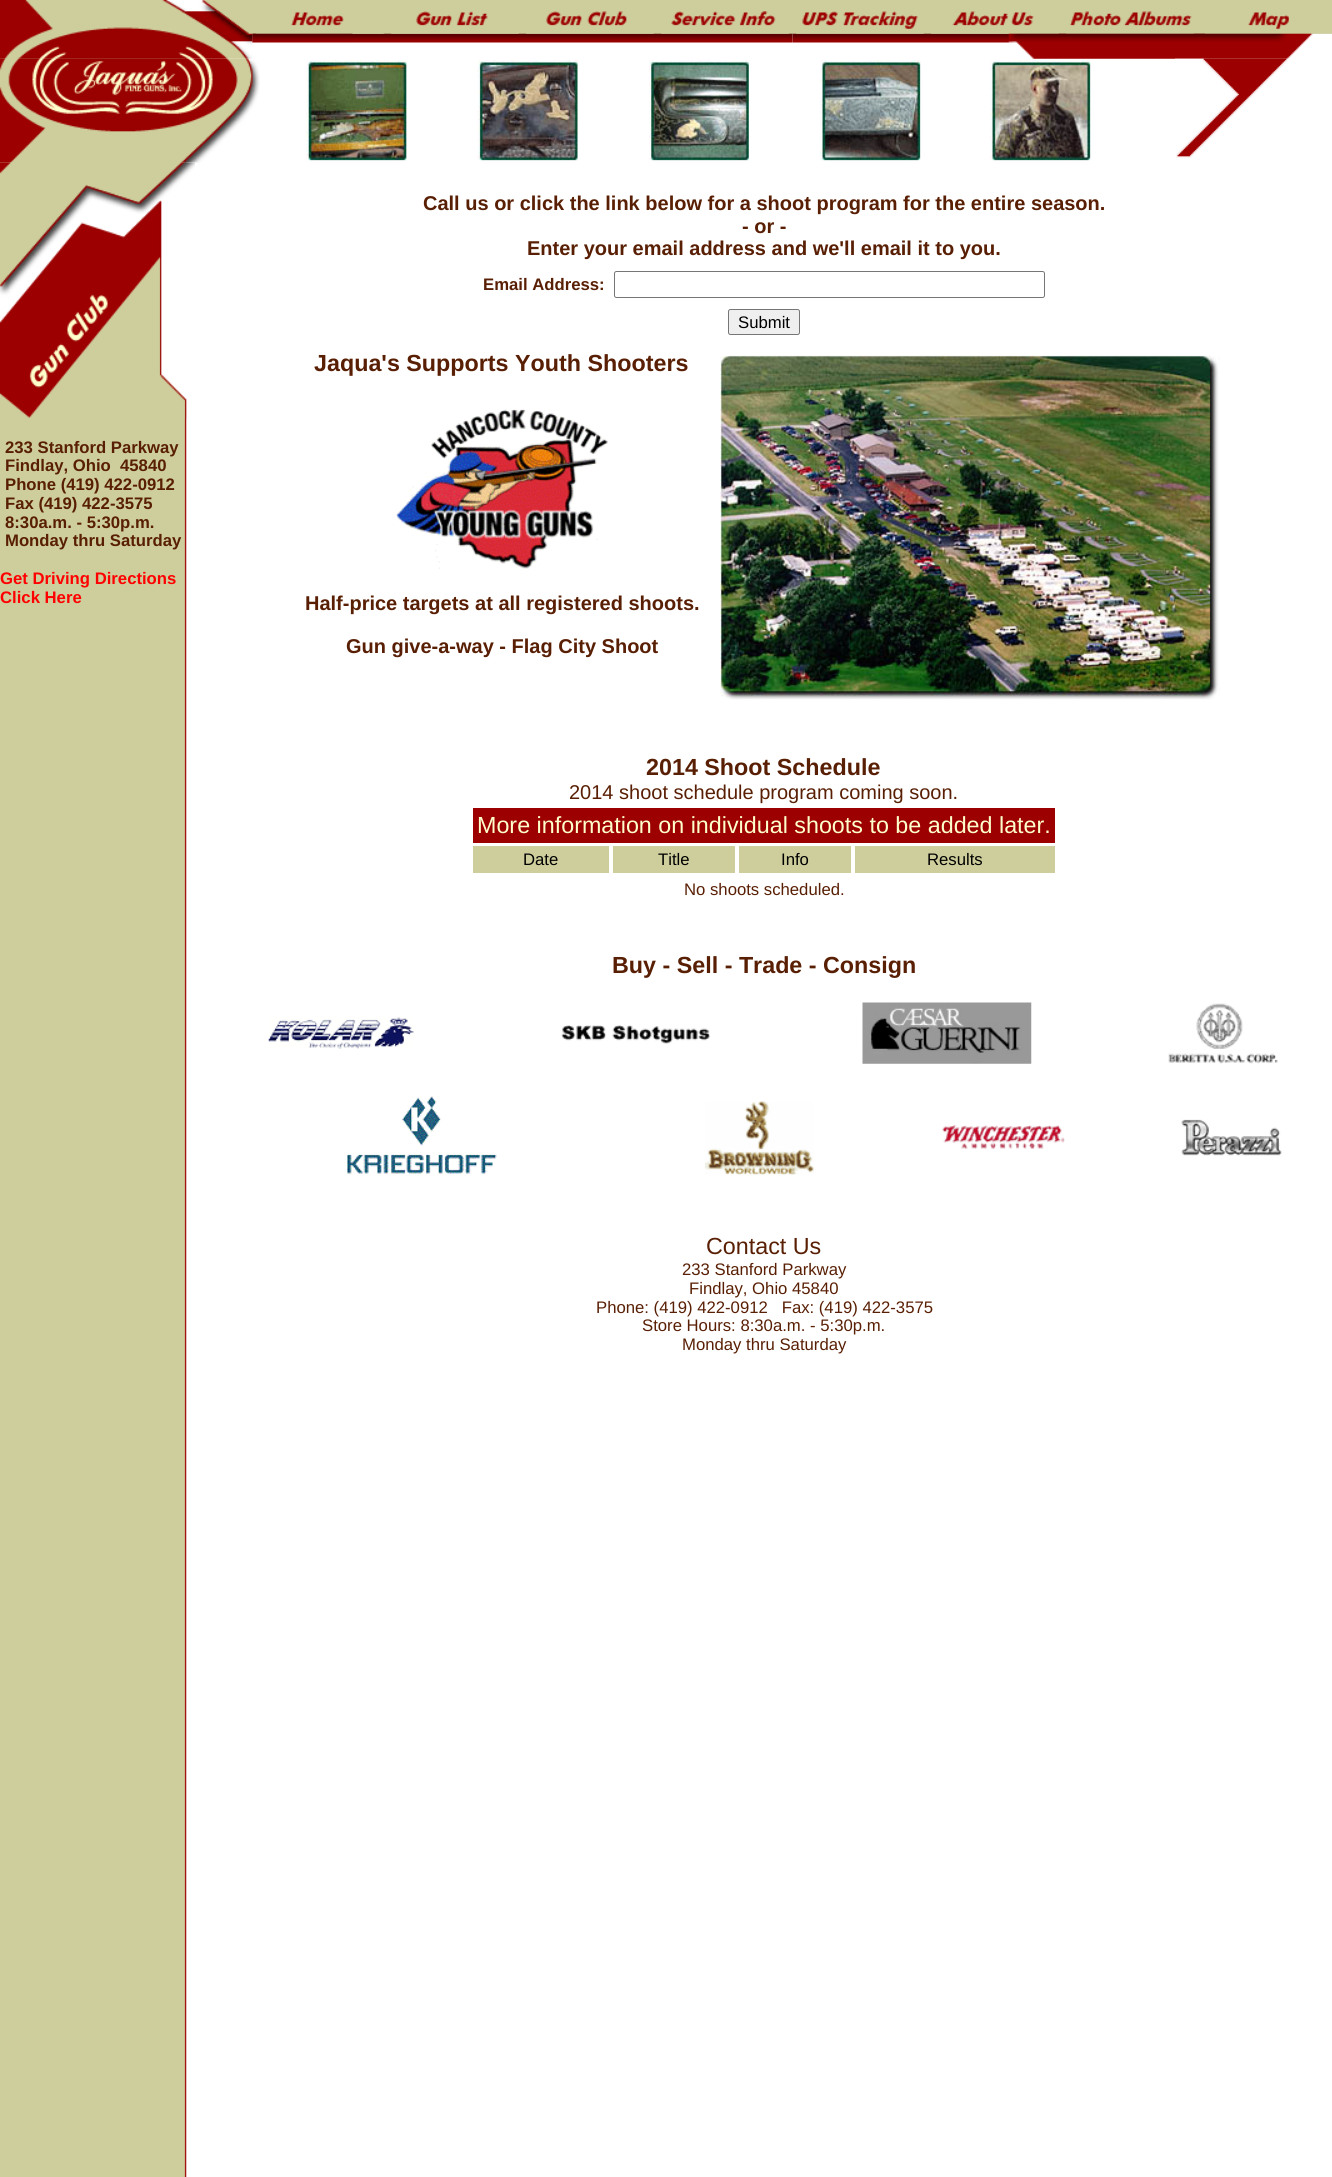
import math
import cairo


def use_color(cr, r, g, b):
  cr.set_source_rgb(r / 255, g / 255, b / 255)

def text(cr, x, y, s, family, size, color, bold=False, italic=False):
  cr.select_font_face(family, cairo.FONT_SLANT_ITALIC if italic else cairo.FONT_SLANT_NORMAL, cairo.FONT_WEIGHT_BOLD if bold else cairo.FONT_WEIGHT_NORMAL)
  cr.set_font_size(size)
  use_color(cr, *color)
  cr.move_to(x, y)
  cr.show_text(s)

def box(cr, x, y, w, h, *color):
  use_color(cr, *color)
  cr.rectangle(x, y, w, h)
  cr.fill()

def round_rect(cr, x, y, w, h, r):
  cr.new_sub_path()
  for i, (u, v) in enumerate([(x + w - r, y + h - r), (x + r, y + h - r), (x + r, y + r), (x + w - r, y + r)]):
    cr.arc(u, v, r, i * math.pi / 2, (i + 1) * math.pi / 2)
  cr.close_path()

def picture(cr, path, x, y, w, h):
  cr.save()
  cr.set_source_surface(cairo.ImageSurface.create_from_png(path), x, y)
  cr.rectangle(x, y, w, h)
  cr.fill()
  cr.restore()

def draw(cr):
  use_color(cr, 255, 255, 255)
  cr.paint()
  picture(cr, "img_01.png", 0, 58, 187, 2119)
  box(cr, 252, 0, 1080, 34, 206, 206, 156)
  picture(cr, "img_11.png", 252, 33, 541, 10)
  picture(cr, "img_02.png", 0, 0, 253, 59)
  picture(cr, "img_03.png", 256, 12, 128, 22)
  picture(cr, "img_04.png", 391, 11, 128, 23)
  picture(cr, "img_05.png", 526, 11, 128, 23)
  picture(cr, "img_06.png", 661, 11, 128, 23)
  picture(cr, "img_13.png", 792, 33, 540, 10)
  picture(cr, "img_07.png", 796, 11, 128, 23)
  picture(cr, "img_08.png", 931, 11, 128, 23)
  picture(cr, "img_09.png", 1066, 11, 128, 23)
  picture(cr, "img_10.png", 1205, 12, 127, 22)
  picture(cr, "img_12.png", 252, 33, 101, 10)
  picture(cr, "img_14.png", 1008, 33, 324, 26)
  picture(cr, "img_15.png", 0, 58, 260, 105)
  picture(cr, "img_16.png", 306, 60, 101, 101)
  picture(cr, "img_17.png", 477, 60, 101, 101)
  picture(cr, "img_18.png", 649, 60, 100, 101)
  picture(cr, "img_19.png", 820, 60, 101, 101)
  picture(cr, "img_20.png", 990, 60, 101, 101)
  picture(cr, "img_21.png", 1175, 58, 114, 100)
  picture(cr, "img_22.png", 0, 162, 195, 257)
  round_rect(cr, 614.5, 271.5, 430, 26, 2)
  use_color(cr, 118, 118, 118)
  cr.set_line_width(1)
  cr.stroke()
  use_color(cr, 239, 239, 239)
  round_rect(cr, 728.5, 309.5, 71, 25, 2)
  cr.fill_preserve()
  use_color(cr, 118, 118, 118)
  cr.stroke()
  picture(cr, "img_23.png", 396, 409, 212, 160)
  picture(cr, "img_24.png", 720, 355, 500, 345)
  box(cr, 473, 808, 582, 35, 156, 0, 0)
  box(cr, 473, 846, 136, 27, 206, 206, 156)
  box(cr, 613, 846, 122, 27, 206, 206, 156)
  box(cr, 739, 846, 112, 27, 206, 206, 156)
  box(cr, 855, 846, 200, 27, 206, 206, 156)
  picture(cr, "img_25.png", 268, 1017, 146, 32)
  picture(cr, "img_26.png", 561, 1025, 149, 19)
  picture(cr, "img_27.png", 862, 1002, 170, 62)
  picture(cr, "img_28.png", 1168, 1003, 110, 61)
  picture(cr, "img_29.png", 347, 1096, 150, 78)
  picture(cr, "img_30.png", 705, 1101, 109, 74)
  picture(cr, "img_31.png", 942, 1125, 123, 24)
  picture(cr, "img_32.png", 1181, 1119, 101, 37)
  text(cr, 5, 453, "233 Stanford Parkway", "Liberation Sans", 16.7, (89, 31, 4), bold=True)
  text(cr, 5, 471, "Findlay, Ohio  45840", "Liberation Sans", 16.7, (89, 31, 4), bold=True)
  text(cr, 5, 490, "Phone (419) 422-0912", "Liberation Sans", 16.7, (89, 31, 4), bold=True)
  text(cr, 5, 509, "Fax (419) 422-3575", "Liberation Sans", 16.7, (89, 31, 4), bold=True)
  text(cr, 5, 528, "8:30a.m. - 5:30p.m.", "Liberation Sans", 16.7, (89, 31, 4), bold=True)
  text(cr, 5, 546, "Monday thru Saturday", "Liberation Sans", 16.7, (89, 31, 4), bold=True)
  text(cr, 0, 584, "Get Driving Directions", "Liberation Sans", 16.7, (255, 0, 0), bold=True)
  text(cr, 0, 603, "Click Here", "Liberation Sans", 16.7, (255, 0, 0), bold=True)
  text(cr, 423, 210, "Call us or click the link below for a shoot program for the entire season.", "Liberation Sans", 20, (89, 31, 4), bold=True)
  text(cr, 742, 233, "- or -", "Liberation Sans", 20, (89, 31, 4), bold=True)
  text(cr, 527, 255, "Enter your email address and we'll email it to you.", "Liberation Sans", 20, (89, 31, 4), bold=True)
  text(cr, 483, 290, "Email Address:", "Liberation Sans", 16.7, (89, 31, 4), bold=True)
  text(cr, 738, 328, "Submit", "Liberation Sans", 16.7, (0, 0, 0))
  text(cr, 314, 371, "Jaqua's Supports Youth Shooters", "Liberation Sans", 23.3, (89, 31, 4), bold=True)
  text(cr, 305, 610, "Half-price targets at all registered shoots.", "Liberation Sans", 20, (89, 31, 4), bold=True)
  text(cr, 346, 653, "Gun give-a-way - Flag City Shoot", "Liberation Sans", 20, (89, 31, 4), bold=True)
  text(cr, 646, 775, "2014 Shoot Schedule", "Liberation Sans", 23.3, (89, 31, 4), bold=True)
  text(cr, 569, 799, "2014 shoot schedule program coming soon.", "Liberation Sans", 20, (89, 31, 4))
  text(cr, 477, 833, "More information on individual shoots to be added later.", "Liberation Sans", 23.3, (255, 255, 204))
  text(cr, 523, 865, "Date", "Liberation Sans", 16.7, (0, 0, 0))
  text(cr, 658, 865, "Title", "Liberation Sans", 16.7, (0, 0, 0))
  text(cr, 781, 865, "Info", "Liberation Sans", 16.7, (0, 0, 0))
  text(cr, 927, 865, "Results", "Liberation Sans", 16.7, (0, 0, 0))
  text(cr, 684, 895, "No shoots scheduled.", "Liberation Sans", 16.7, (89, 31, 4))
  text(cr, 612, 973, "Buy - Sell - Trade - Consign", "Liberation Sans", 23.3, (89, 31, 4), bold=True)
  text(cr, 706, 1254, "Contact Us", "Liberation Sans", 23.3, (89, 31, 4))
  text(cr, 682, 1275, "233 Stanford Parkway", "Liberation Sans", 16.7, (89, 31, 4))
  text(cr, 689, 1294, "Findlay, Ohio 45840", "Liberation Sans", 16.7, (89, 31, 4))
  text(cr, 596, 1313, "Phone: (419) 422-0912   Fax: (419) 422-3575", "Liberation Sans", 16.7, (89, 31, 4))
  text(cr, 642, 1331, "Store Hours: 8:30a.m. - 5:30p.m.", "Liberation Sans", 16.7, (89, 31, 4))
  text(cr, 682, 1350, "Monday thru Saturday", "Liberation Sans", 16.7, (89, 31, 4))


surface = cairo.ImageSurface(cairo.FORMAT_RGB24, 1332, 2177)
cr = cairo.Context(surface)
options = cairo.FontOptions()
options.set_hint_metrics(cairo.HINT_METRICS_OFF)
options.set_hint_style(cairo.HINT_STYLE_NONE)
cr.set_font_options(options)
cr.set_miter_limit(4)
draw(cr)
surface.write_to_png("out.png")
